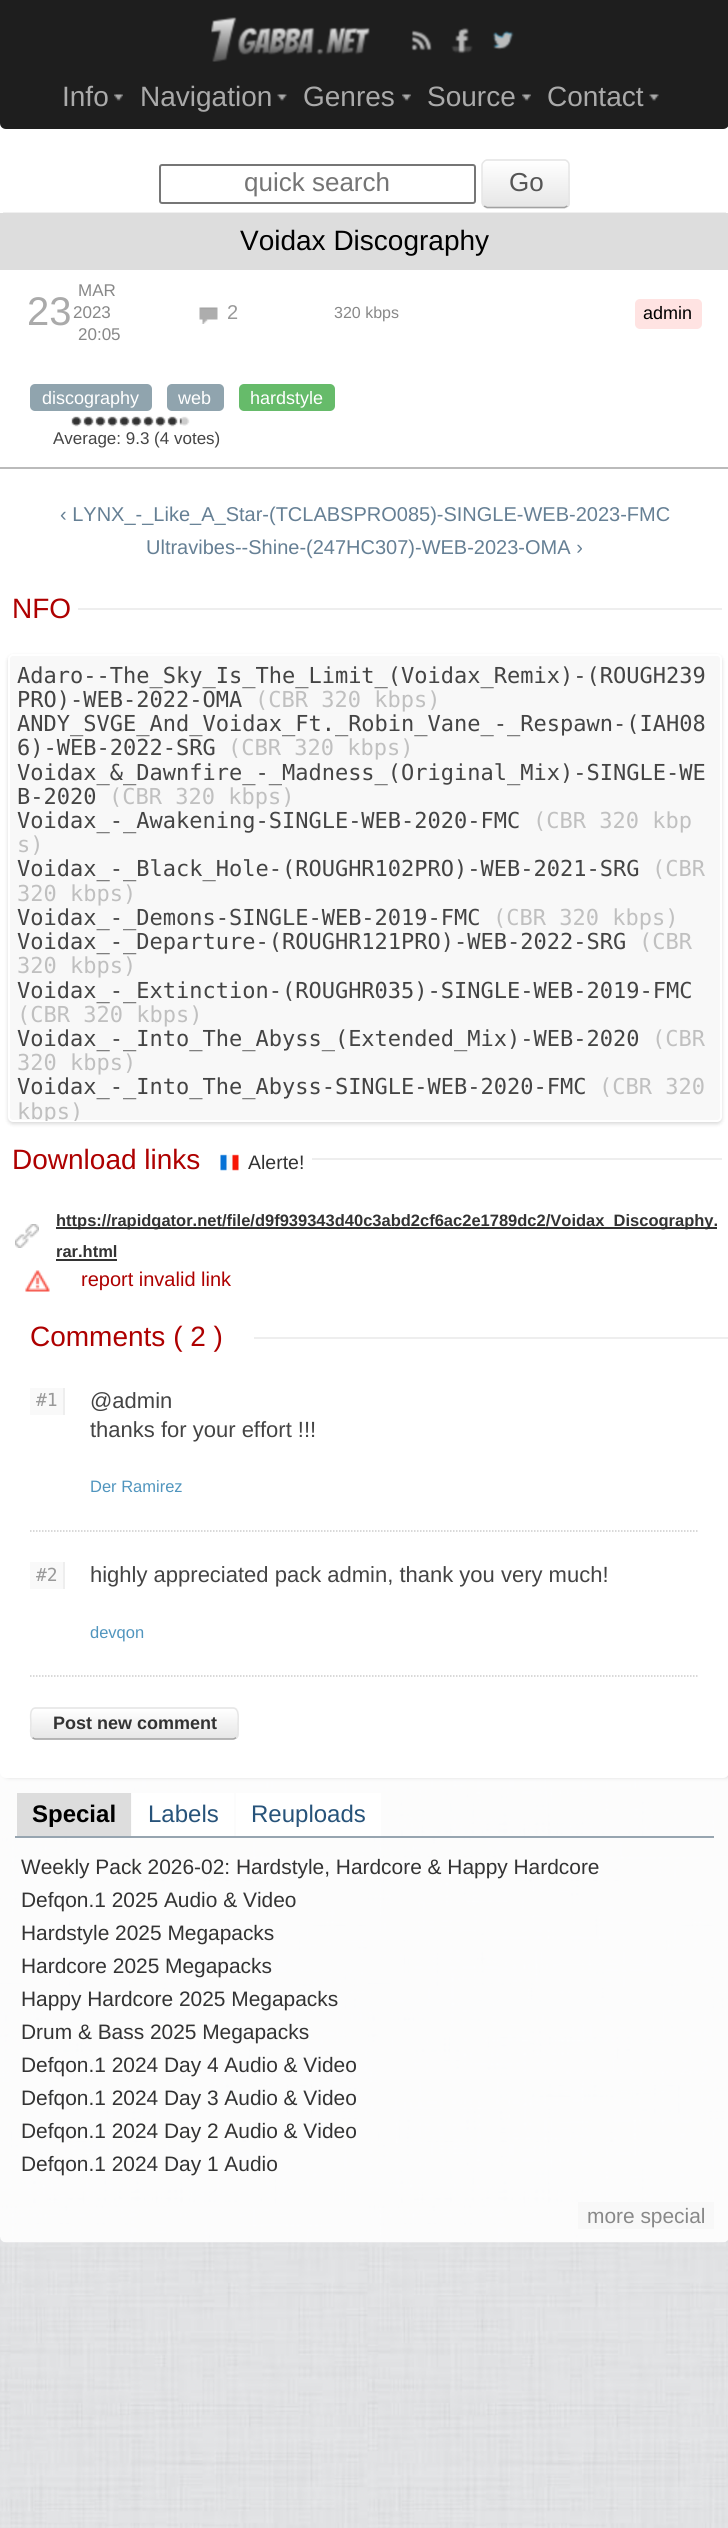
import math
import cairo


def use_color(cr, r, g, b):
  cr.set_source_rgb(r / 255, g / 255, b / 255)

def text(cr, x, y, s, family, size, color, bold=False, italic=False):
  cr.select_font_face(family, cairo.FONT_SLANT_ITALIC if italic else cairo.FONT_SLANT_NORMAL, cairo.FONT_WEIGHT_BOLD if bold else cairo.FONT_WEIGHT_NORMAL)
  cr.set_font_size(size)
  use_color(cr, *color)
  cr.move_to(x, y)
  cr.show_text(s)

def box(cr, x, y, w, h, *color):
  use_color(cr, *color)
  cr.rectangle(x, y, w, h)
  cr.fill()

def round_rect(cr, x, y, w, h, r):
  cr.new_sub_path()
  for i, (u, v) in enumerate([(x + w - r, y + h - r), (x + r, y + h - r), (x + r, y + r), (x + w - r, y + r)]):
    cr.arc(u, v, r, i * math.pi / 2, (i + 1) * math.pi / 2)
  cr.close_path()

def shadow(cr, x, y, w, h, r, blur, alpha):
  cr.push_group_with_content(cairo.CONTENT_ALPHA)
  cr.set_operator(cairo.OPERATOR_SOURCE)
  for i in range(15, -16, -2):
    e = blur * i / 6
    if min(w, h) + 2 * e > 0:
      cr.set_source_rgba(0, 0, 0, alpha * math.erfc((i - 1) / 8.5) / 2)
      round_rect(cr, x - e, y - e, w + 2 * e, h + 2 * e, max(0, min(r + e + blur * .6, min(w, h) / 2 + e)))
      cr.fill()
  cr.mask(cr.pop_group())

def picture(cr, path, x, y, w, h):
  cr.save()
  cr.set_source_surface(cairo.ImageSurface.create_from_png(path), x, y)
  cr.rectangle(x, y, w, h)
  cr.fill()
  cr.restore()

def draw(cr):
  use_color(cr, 255, 255, 255)
  cr.paint()
  box(cr, 0, 0, 728, 8, 30, 30, 30)
  picture(cr, "img_07.png", 0, 1772, 728, 756)
  picture(cr, "img_08.png", 0, 1772, 728, 471)
  use_color(cr, 224, 224, 224)
  shadow(cr, 3, 110, 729, 1668, 6, 2, 1)
  use_color(cr, 255, 255, 255)
  round_rect(cr, 0, 110, 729, 1668, 6)
  cr.fill()
  use_color(cr, 30, 30, 30)
  cr.new_path()
  cr.move_to(0, 8)
  cr.line_to(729, 8)
  cr.line_to(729, 123)
  cr.curve_to(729, 126.5, 726.5, 129, 723, 129)
  cr.line_to(6, 129)
  cr.curve_to(2.5, 129, 0, 126.5, 0, 123)
  cr.close_path()
  cr.fill()
  picture(cr, "img_01.png", 211, 17, 159, 45)
  picture(cr, "img_02.png", 411, 30, 21, 21)
  picture(cr, "img_03.png", 451, 27, 22, 27)
  picture(cr, "img_04.png", 492, 30, 22, 20)
  picture(cr, "img_05.png", 114, 94, 9, 7)
  picture(cr, "img_06.png", 277, 94, 10, 7)
  picture(cr, "img_05.png", 402, 94, 9, 7)
  picture(cr, "img_05.png", 522, 94, 9, 7)
  picture(cr, "img_06.png", 649, 94, 10, 7)
  box(cr, 3, 212, 723, 1, 240, 240, 240)
  round_rect(cr, 160, 165, 315, 38, 2)
  use_color(cr, 118, 118, 118)
  cr.stroke()
  use_color(cr, 245, 245, 245)
  round_rect(cr, 482, 159, 88, 50, 6)
  cr.fill()
  cr.save()
  round_rect(cr, 482, 159, 88, 50, 6)
  cr.clip()
  gradient = cairo.LinearGradient(526, 161, 526, 207)
  gradient.add_color_stop_rgba(0, 1, 1, 1, 1)
  gradient.add_color_stop_rgba(1, 0.902, 0.902, 0.902, 1)
  cr.set_source(gradient)
  cr.rectangle(482, 161, 88, 46)
  cr.fill()
  cr.restore()
  cr.new_path()
  cr.move_to(567.5, 206)
  cr.line_to(564.5, 207.5)
  cr.line_to(487, 207.5)
  cr.line_to(484, 206)
  use_color(cr, 162, 162, 162)
  cr.set_line_width(1.5)
  cr.stroke()
  cr.new_path()
  cr.move_to(484, 206)
  cr.curve_to(483, 205, 482, 204, 482, 202.5)
  cr.line_to(482, 165)
  cr.curve_to(482, 163.5, 483, 162.5, 484, 161.5)
  cr.curve_to(485, 160.5, 486, 160, 487.5, 160)
  cr.line_to(564, 160)
  cr.curve_to(565.5, 160, 566.5, 160.5, 567.5, 161.5)
  cr.curve_to(568.5, 162.5, 569, 163.5, 569, 165)
  cr.line_to(569, 202.5)
  cr.curve_to(569, 204, 568.5, 205, 567.5, 206)
  use_color(cr, 230, 230, 230)
  cr.stroke()
  box(cr, 0, 213, 728, 57, 221, 221, 221)
  picture(cr, "img_09.png", 199, 307, 19, 17)
  use_color(cr, 255, 227, 226)
  round_rect(cr, 635, 299, 67, 30, 5)
  cr.fill()
  box(cr, 0, 467, 728, 2, 187, 187, 187)
  use_color(cr, 144, 164, 174)
  round_rect(cr, 30, 384, 122, 27, 5)
  cr.fill()
  round_rect(cr, 167, 384, 57, 27, 5)
  cr.fill()
  use_color(cr, 102, 187, 106)
  round_rect(cr, 239, 384, 96, 27, 5)
  cr.fill()
  picture(cr, "img_10.png", 71, 416, 11, 10)
  picture(cr, "img_11.png", 71, 416, 11, 11)
  picture(cr, "img_10.png", 83, 416, 11, 10)
  picture(cr, "img_11.png", 83, 416, 11, 11)
  picture(cr, "img_10.png", 95, 416, 11, 10)
  picture(cr, "img_11.png", 95, 416, 11, 11)
  picture(cr, "img_10.png", 107, 416, 11, 10)
  picture(cr, "img_11.png", 107, 416, 11, 11)
  picture(cr, "img_10.png", 119, 416, 11, 10)
  picture(cr, "img_11.png", 119, 416, 11, 11)
  picture(cr, "img_10.png", 131, 416, 11, 10)
  picture(cr, "img_11.png", 131, 416, 11, 11)
  picture(cr, "img_10.png", 143, 416, 11, 10)
  picture(cr, "img_11.png", 143, 416, 11, 11)
  picture(cr, "img_10.png", 155, 416, 11, 10)
  picture(cr, "img_11.png", 155, 416, 11, 11)
  picture(cr, "img_10.png", 167, 416, 11, 10)
  picture(cr, "img_11.png", 167, 416, 11, 11)
  picture(cr, "img_10.png", 179, 416, 11, 10)
  picture(cr, "img_12.png", 179, 418, 3, 7)
  box(cr, 78, 608, 644, 2, 238, 238, 238)
  use_color(cr, 0, 0, 0)
  shadow(cr, 8, 656, 714, 468, 5, 2, 0.15)
  use_color(cr, 248, 248, 248)
  round_rect(cr, 9, 655, 712, 466, 4)
  cr.fill_preserve()
  use_color(cr, 255, 255, 255)
  cr.set_line_width(2)
  cr.stroke()
  picture(cr, "img_13.png", 220, 1154, 19, 17)
  box(cr, 312, 1158, 410, 2, 238, 238, 238)
  picture(cr, "img_14.png", 15, 1224, 24, 24)
  box(cr, 56, 1227, 661, 2, 51, 51, 51)
  box(cr, 56, 1259, 61, 2, 51, 51, 51)
  picture(cr, "img_15.png", 25, 1270, 25, 22)
  box(cr, 254, 1337, 474, 2, 238, 238, 238)
  box(cr, 30, 1388, 33, 27, 249, 249, 249)
  box(cr, 63, 1388, 2, 27, 238, 238, 238)
  cr.new_path()
  cr.move_to(30, 1531)
  cr.line_to(699, 1531)
  use_color(cr, 204, 204, 204)
  cr.set_line_width(1.5)
  cr.set_dash([1.5, 1.5])
  cr.stroke()
  box(cr, 30, 1562, 33, 27, 249, 249, 249)
  box(cr, 63, 1562, 2, 27, 238, 238, 238)
  cr.new_path()
  cr.move_to(30, 1676)
  cr.line_to(699, 1676)
  use_color(cr, 204, 204, 204)
  cr.stroke()
  use_color(cr, 245, 245, 245)
  round_rect(cr, 30, 1707, 209, 33, 6)
  cr.fill()
  cr.save()
  round_rect(cr, 30, 1707, 209, 33, 6)
  cr.clip()
  gradient = cairo.LinearGradient(134, 1709, 134, 1739)
  gradient.add_color_stop_rgba(0, 1, 1, 1, 1)
  gradient.add_color_stop_rgba(1, 0.902, 0.902, 0.902, 1)
  cr.set_source(gradient)
  cr.rectangle(30, 1709, 209, 30)
  cr.fill()
  cr.restore()
  cr.new_path()
  cr.move_to(236, 1737.5)
  cr.curve_to(235, 1738.5, 234, 1739, 232.5, 1739)
  cr.line_to(36, 1739)
  cr.curve_to(34.5, 1739, 33.5, 1738.5, 32.5, 1737.5)
  use_color(cr, 162, 162, 162)
  cr.set_dash([])
  cr.stroke()
  cr.new_path()
  cr.move_to(32.5, 1737.5)
  cr.curve_to(29.5, 1735, 31, 1727, 31, 1723.5)
  cr.curve_to(31, 1719.5, 28.5, 1708, 36, 1708)
  cr.line_to(232.5, 1708)
  cr.curve_to(240, 1708, 238, 1719.5, 238, 1723.5)
  cr.curve_to(238, 1727, 239, 1735, 236, 1737.5)
  use_color(cr, 230, 230, 230)
  cr.stroke()
  box(cr, 17, 1793, 114, 43, 221, 221, 221)
  box(cr, 132, 1793, 102, 43, 255, 255, 255)
  box(cr, 236, 1793, 145, 43, 255, 255, 255)
  box(cr, 15, 1836, 699, 2, 151, 165, 176)
  box(cr, 578, 2202, 136, 27, 248, 248, 248)
  text(cr, 62, 106, "Info", "Liberation Sans", 28, (170, 170, 170))
  text(cr, 140, 106, "Navigation", "Liberation Sans", 28, (170, 170, 170))
  text(cr, 303, 106, "Genres", "Liberation Sans", 28, (170, 170, 170))
  text(cr, 427, 106, "Source", "Liberation Sans", 28, (170, 170, 170))
  text(cr, 547, 106, "Contact", "Liberation Sans", 28, (170, 170, 170))
  text(cr, 244, 191, "quick search", "Liberation Sans", 26, (117, 117, 117))
  text(cr, 509, 191, "Go", "Liberation Sans", 26, (85, 85, 85))
  text(cr, 240, 250, "Voidax Discography", "Liberation Sans", 28, (0, 0, 0))
  text(cr, 27, 325, "23", "Liberation Sans", 40, (170, 170, 170))
  text(cr, 78, 296, "MAR", "Liberation Sans", 17, (136, 136, 136))
  text(cr, 73, 318, "2023", "Liberation Sans", 17, (136, 136, 136))
  text(cr, 78, 340, "20:05", "Liberation Sans", 17, (136, 136, 136))
  text(cr, 227, 319, "2", "Liberation Sans", 20, (153, 153, 153))
  text(cr, 334, 318, "320 kbps", "Liberation Sans", 16, (136, 136, 136))
  text(cr, 643, 319, "admin", "Liberation Sans", 18, (0, 0, 0))
  text(cr, 42, 404, "discography", "Liberation Sans", 18, (255, 255, 255))
  text(cr, 178, 404, "web", "Liberation Sans", 18, (255, 255, 255))
  text(cr, 250, 404, "hardstyle", "Liberation Sans", 18, (255, 255, 255))
  text(cr, 53, 444, "Average: 9.3 (4 votes)", "Liberation Sans", 17, (68, 68, 68))
  text(cr, 60, 521, "‹ LYNX_-_Like_A_Star-(TCLABSPRO085)-SINGLE-WEB-2023-FMC", "Liberation Sans", 20, (101, 127, 148))
  text(cr, 146, 554, "Ultravibes--Shine-(247HC307)-WEB-2023-OMA ›", "Liberation Sans", 20, (101, 127, 148))
  text(cr, 12, 618, "NFO", "Liberation Sans", 28, (174, 0, 0))
  text(cr, 17, 683, "Adaro--The_Sky_Is_The_Limit_(Voidax_Remix)-(ROUGH239", "DejaVu Sans Mono", 22, (68, 68, 68))
  text(cr, 17, 707, "PRO)-WEB-2022-OMA", "DejaVu Sans Mono", 22, (68, 68, 68))
  text(cr, 255, 707, "(CBR 320 kbps)", "DejaVu Sans Mono", 22, (192, 192, 192))
  text(cr, 17, 731, "ANDY_SVGE_And_Voidax_Ft._Robin_Vane_-_Respawn-(IAH08", "DejaVu Sans Mono", 22, (68, 68, 68))
  text(cr, 17, 755, "6)-WEB-2022-SRG", "DejaVu Sans Mono", 22, (68, 68, 68))
  text(cr, 228, 755, "(CBR 320 kbps)", "DejaVu Sans Mono", 22, (192, 192, 192))
  text(cr, 17, 780, "Voidax_&_Dawnfire_-_Madness_(Original_Mix)-SINGLE-WE", "DejaVu Sans Mono", 22, (68, 68, 68))
  text(cr, 17, 804, "B-2020", "DejaVu Sans Mono", 22, (68, 68, 68))
  text(cr, 109, 804, "(CBR 320 kbps)", "DejaVu Sans Mono", 22, (192, 192, 192))
  text(cr, 17, 828, "Voidax_-_Awakening-SINGLE-WEB-2020-FMC", "DejaVu Sans Mono", 22, (68, 68, 68))
  text(cr, 533, 828, "(CBR 320 kbp", "DejaVu Sans Mono", 22, (192, 192, 192))
  text(cr, 17, 852, "s)", "DejaVu Sans Mono", 22, (192, 192, 192))
  text(cr, 17, 876, "Voidax_-_Black_Hole-(ROUGHR102PRO)-WEB-2021-SRG", "DejaVu Sans Mono", 22, (68, 68, 68))
  text(cr, 652, 876, "(CBR", "DejaVu Sans Mono", 22, (192, 192, 192))
  text(cr, 17, 901, "320 kbps)", "DejaVu Sans Mono", 22, (192, 192, 192))
  text(cr, 17, 925, "Voidax_-_Demons-SINGLE-WEB-2019-FMC", "DejaVu Sans Mono", 22, (68, 68, 68))
  text(cr, 493, 925, "(CBR 320 kbps)", "DejaVu Sans Mono", 22, (192, 192, 192))
  text(cr, 17, 949, "Voidax_-_Departure-(ROUGHR121PRO)-WEB-2022-SRG", "DejaVu Sans Mono", 22, (68, 68, 68))
  text(cr, 639, 949, "(CBR", "DejaVu Sans Mono", 22, (192, 192, 192))
  text(cr, 17, 973, "320 kbps)", "DejaVu Sans Mono", 22, (192, 192, 192))
  text(cr, 17, 998, "Voidax_-_Extinction-(ROUGHR035)-SINGLE-WEB-2019-FMC", "DejaVu Sans Mono", 22, (68, 68, 68))
  text(cr, 17, 1022, "(CBR 320 kbps)", "DejaVu Sans Mono", 22, (192, 192, 192))
  text(cr, 17, 1046, "Voidax_-_Into_The_Abyss_(Extended_Mix)-WEB-2020", "DejaVu Sans Mono", 22, (68, 68, 68))
  text(cr, 652, 1046, "(CBR", "DejaVu Sans Mono", 22, (192, 192, 192))
  text(cr, 17, 1070, "320 kbps)", "DejaVu Sans Mono", 22, (192, 192, 192))
  text(cr, 17, 1094, "Voidax_-_Into_The_Abyss-SINGLE-WEB-2020-FMC", "DejaVu Sans Mono", 22, (68, 68, 68))
  text(cr, 599, 1094, "(CBR 320", "DejaVu Sans Mono", 22, (192, 192, 192))
  cr.save()
  round_rect(cr, 9, 656, 711, 465, 3)
  cr.clip()
  text(cr, 17, 1119, "kbps)", "DejaVu Sans Mono", 22, (192, 192, 192))
  cr.restore()
  text(cr, 12, 1169, "Download links", "Liberation Sans", 28, (174, 0, 0))
  text(cr, 248, 1169, "Alerte!", "Liberation Sans", 19.5, (51, 51, 51))
  text(cr, 56, 1226, "https://rapidgator.net/file/d9f939343d40c3abd2cf6ac2e1789dc2/Voidax_Discography.", "Liberation Sans", 16.5, (51, 51, 51), bold=True)
  text(cr, 56, 1257, "rar.html", "Liberation Sans", 16.5, (51, 51, 51), bold=True)
  text(cr, 81, 1286, "report invalid link", "Liberation Sans", 20, (174, 0, 0))
  text(cr, 30, 1346, "Comments ( 2 )", "Liberation Sans", 28, (174, 0, 0))
  text(cr, 36, 1406, "#1", "DejaVu Sans Mono", 18, (153, 153, 153))
  text(cr, 90, 1408, "@admin", "Liberation Sans", 22, (68, 68, 68))
  text(cr, 90, 1437, "thanks for your effort !!!", "Liberation Sans", 22, (68, 68, 68))
  text(cr, 90, 1492, "Der Ramirez", "Liberation Sans", 16.5, (80, 149, 190))
  text(cr, 36, 1581, "#2", "DejaVu Sans Mono", 18, (153, 153, 153))
  text(cr, 90, 1582, "highly appreciated pack admin, thank you very much!", "Liberation Sans", 22, (68, 68, 68))
  text(cr, 90, 1638, "devqon", "Liberation Sans", 16.5, (80, 149, 190))
  text(cr, 53, 1729, "Post new comment", "Liberation Sans", 18, (51, 51, 51), bold=True)
  text(cr, 32, 1822, "Special", "Liberation Sans", 24, (0, 0, 0), bold=True)
  text(cr, 148, 1822, "Labels", "Liberation Sans", 24, (39, 83, 122))
  text(cr, 251, 1822, "Reuploads", "Liberation Sans", 24, (39, 83, 122))
  text(cr, 21, 1874, "Weekly Pack 2026-02: Hardstyle, Hardcore & Happy Hardcore", "Liberation Sans", 20.9, (51, 51, 51))
  text(cr, 21, 1907, "Defqon.1 2025 Audio & Video", "Liberation Sans", 20.9, (51, 51, 51))
  text(cr, 21, 1940, "Hardstyle 2025 Megapacks", "Liberation Sans", 20.9, (51, 51, 51))
  text(cr, 21, 1973, "Hardcore 2025 Megapacks", "Liberation Sans", 20.9, (51, 51, 51))
  text(cr, 21, 2006, "Happy Hardcore 2025 Megapacks", "Liberation Sans", 20.9, (51, 51, 51))
  text(cr, 21, 2039, "Drum & Bass 2025 Megapacks", "Liberation Sans", 20.9, (51, 51, 51))
  text(cr, 21, 2072, "Defqon.1 2024 Day 4 Audio & Video", "Liberation Sans", 20.9, (51, 51, 51))
  text(cr, 21, 2105, "Defqon.1 2024 Day 3 Audio & Video", "Liberation Sans", 20.9, (51, 51, 51))
  text(cr, 21, 2138, "Defqon.1 2024 Day 2 Audio & Video", "Liberation Sans", 20.9, (51, 51, 51))
  text(cr, 21, 2171, "Defqon.1 2024 Day 1 Audio", "Liberation Sans", 20.9, (51, 51, 51))
  text(cr, 587, 2223, "more special", "Liberation Sans", 20.9, (136, 136, 136))


surface = cairo.ImageSurface(cairo.FORMAT_RGB24, 728, 2528)
cr = cairo.Context(surface)
options = cairo.FontOptions()
options.set_hint_metrics(cairo.HINT_METRICS_OFF)
options.set_hint_style(cairo.HINT_STYLE_NONE)
cr.set_font_options(options)
cr.set_miter_limit(4)
draw(cr)
surface.write_to_png("out.png")
